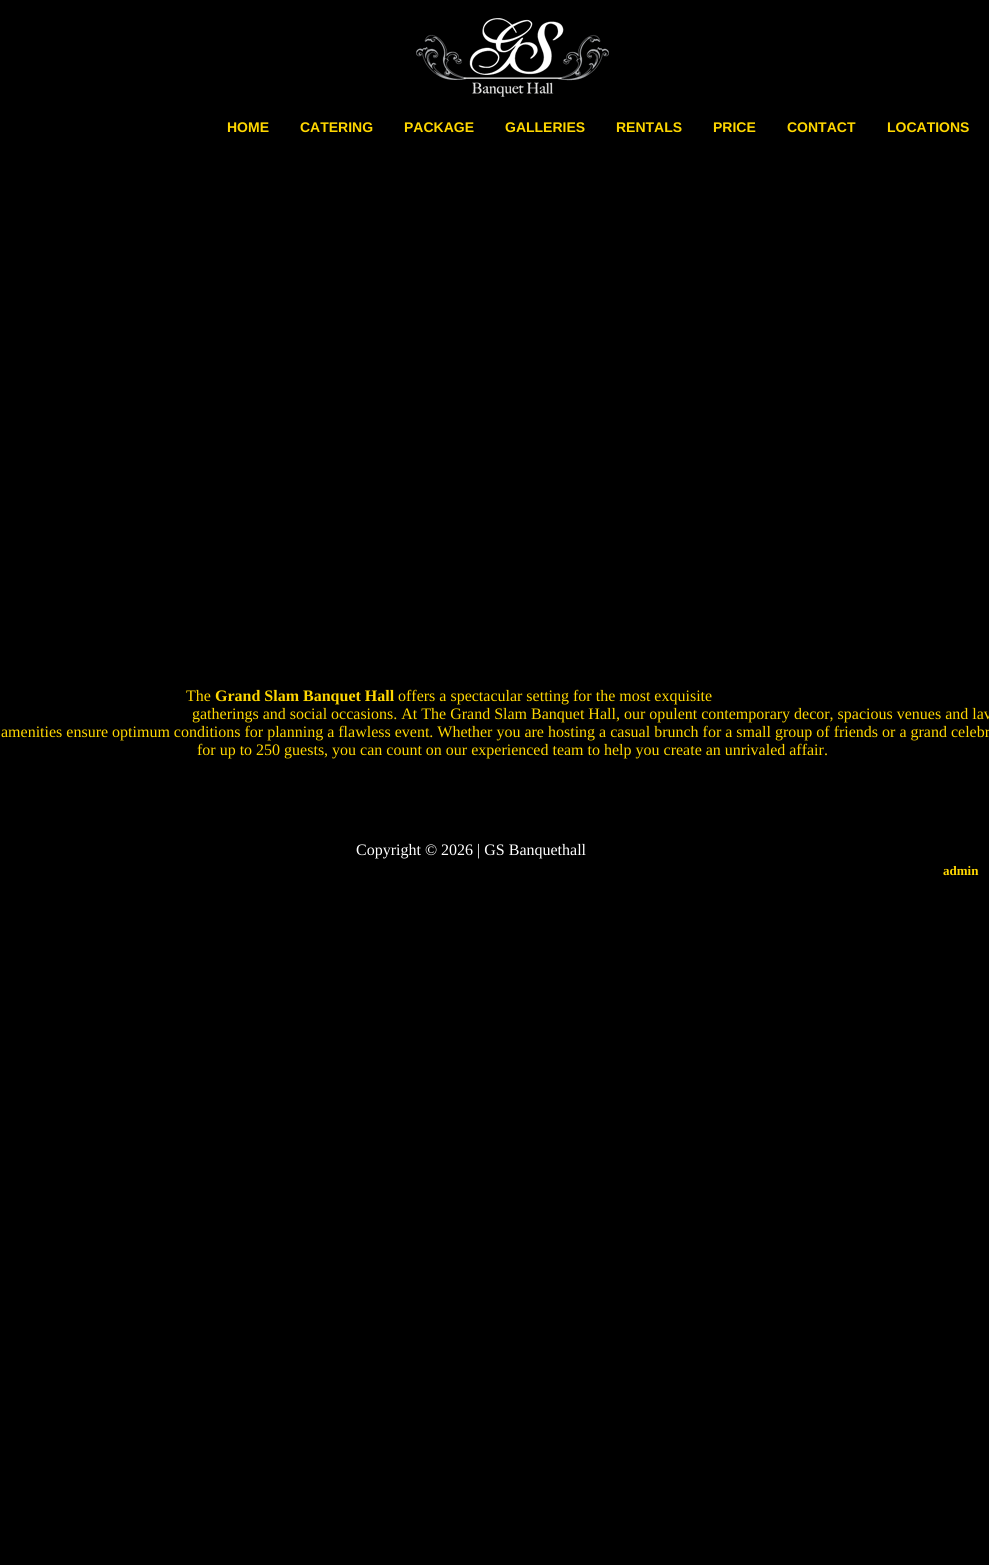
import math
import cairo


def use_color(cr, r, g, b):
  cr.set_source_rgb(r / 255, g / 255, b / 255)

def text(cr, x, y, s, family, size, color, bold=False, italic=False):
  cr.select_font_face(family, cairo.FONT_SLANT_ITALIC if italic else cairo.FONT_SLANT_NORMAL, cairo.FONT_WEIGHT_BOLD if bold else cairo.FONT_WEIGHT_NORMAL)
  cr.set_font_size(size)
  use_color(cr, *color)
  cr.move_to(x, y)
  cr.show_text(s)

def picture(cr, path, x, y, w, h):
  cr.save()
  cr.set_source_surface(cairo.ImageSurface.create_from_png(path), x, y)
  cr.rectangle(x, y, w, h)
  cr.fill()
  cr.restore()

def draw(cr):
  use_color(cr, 0, 0, 0)
  cr.paint()
  picture(cr, "img_01.png", 416, 18, 193, 79)
  text(cr, 227, 132, "HOME", "Liberation Sans", 14, (255, 215, 0), bold=True)
  text(cr, 300, 132, "CATERING", "Liberation Sans", 14, (255, 215, 0), bold=True)
  text(cr, 404, 132, "PACKAGE", "Liberation Sans", 14, (255, 215, 0), bold=True)
  text(cr, 505, 132, "GALLERIES", "Liberation Sans", 14, (255, 215, 0), bold=True)
  text(cr, 616, 132, "RENTALS", "Liberation Sans", 14, (255, 215, 0), bold=True)
  text(cr, 713, 132, "PRICE", "Liberation Sans", 14, (255, 215, 0), bold=True)
  text(cr, 787, 132, "CONTACT", "Liberation Sans", 14, (255, 215, 0), bold=True)
  text(cr, 887, 132, "LOCATIONS", "Liberation Sans", 14, (255, 215, 0), bold=True)
  text(cr, 186, 701, "The", "Liberation Serif", 16, (255, 215, 0))
  text(cr, 215, 701, "Grand Slam Banquet Hall", "Liberation Serif", 16, (255, 215, 0), bold=True)
  text(cr, 398, 701, "offers a spectacular setting for the most exquisite", "Liberation Serif", 16, (255, 215, 0))
  text(cr, 192, 719, "gatherings and social occasions. At The Grand Slam Banquet Hall, our opulent contemporary decor, spacious venues and lav", "Liberation Serif", 16, (255, 215, 0))
  text(cr, 1, 737, "amenities ensure optimum conditions for planning a flawless event. Whether you are hosting a casual brunch for a small group of friends or a grand celebr", "Liberation Serif", 16, (255, 215, 0))
  text(cr, 197, 755, "for up to 250 guests, you can count on our experienced team to help you create an unrivaled affair.", "Liberation Serif", 16, (255, 215, 0))
  text(cr, 356, 855, "Copyright © 2026 | GS Banquethall", "Liberation Serif", 16, (255, 255, 255))
  text(cr, 943, 875, "admin", "Liberation Serif", 13, (255, 215, 0), bold=True)


surface = cairo.ImageSurface(cairo.FORMAT_RGB24, 989, 1565)
cr = cairo.Context(surface)
options = cairo.FontOptions()
options.set_hint_metrics(cairo.HINT_METRICS_OFF)
options.set_hint_style(cairo.HINT_STYLE_NONE)
cr.set_font_options(options)
cr.set_miter_limit(4)
draw(cr)
surface.write_to_png("out.png")
